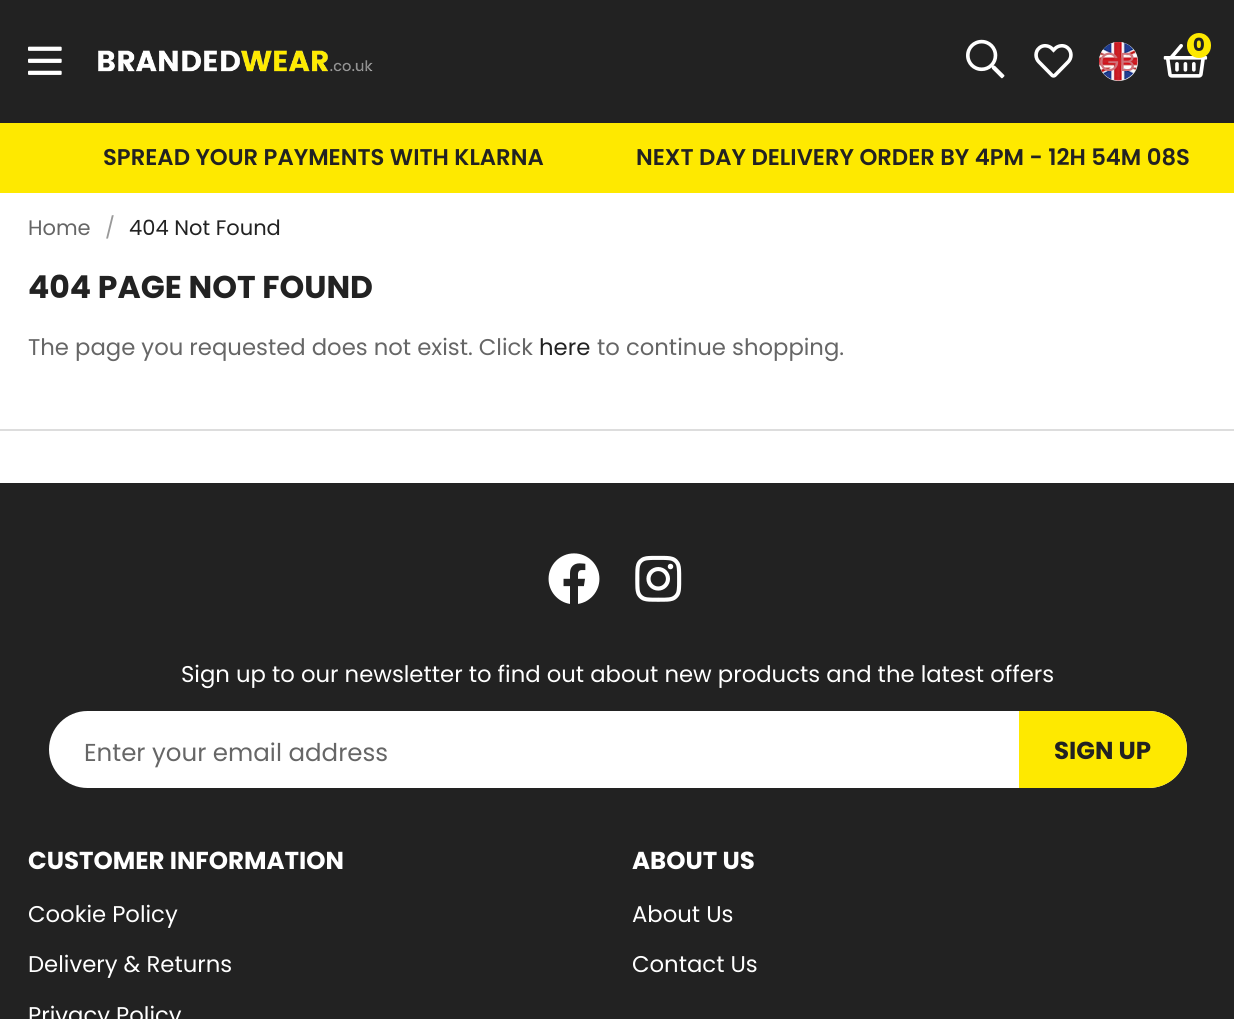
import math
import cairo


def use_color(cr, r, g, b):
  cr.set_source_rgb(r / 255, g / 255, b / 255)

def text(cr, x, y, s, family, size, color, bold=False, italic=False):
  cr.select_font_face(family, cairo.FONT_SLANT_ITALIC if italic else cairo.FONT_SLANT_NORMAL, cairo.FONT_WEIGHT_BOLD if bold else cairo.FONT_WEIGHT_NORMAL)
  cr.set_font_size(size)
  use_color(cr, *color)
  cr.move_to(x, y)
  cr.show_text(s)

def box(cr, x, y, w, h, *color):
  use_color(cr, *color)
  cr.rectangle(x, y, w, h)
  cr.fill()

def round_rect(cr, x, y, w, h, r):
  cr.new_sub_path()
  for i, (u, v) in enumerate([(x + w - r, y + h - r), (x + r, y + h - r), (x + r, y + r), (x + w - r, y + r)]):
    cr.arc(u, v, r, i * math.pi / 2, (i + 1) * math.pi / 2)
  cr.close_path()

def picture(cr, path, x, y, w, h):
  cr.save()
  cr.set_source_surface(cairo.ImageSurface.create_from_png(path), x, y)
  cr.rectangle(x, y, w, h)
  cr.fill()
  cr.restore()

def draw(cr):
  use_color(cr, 255, 255, 255)
  cr.paint()
  box(cr, 0, 0, 1234, 123, 34, 34, 34)
  picture(cr, "img_01.png", 28, 46, 34, 29)
  picture(cr, "img_02.png", 98, 50, 275, 22)
  picture(cr, "img_03.png", 966, 39, 39, 40)
  picture(cr, "img_04.png", 1034, 44, 39, 34)
  use_color(cr, 238, 238, 238)
  cr.arc(1118.5, 61.5, 19.5, 0, 2 * math.pi)
  cr.fill()
  picture(cr, "img_05.png", 1098, 42, 40, 39)
  picture(cr, "img_06.png", 1163, 44, 45, 34)
  use_color(cr, 254, 233, 0)
  round_rect(cr, 1187, 33, 24, 25, 12)
  cr.fill()
  box(cr, 0, 123, 1234, 70, 254, 233, 0)
  box(cr, 0, 429, 1234, 2, 221, 221, 221)
  box(cr, 0, 483, 1234, 536, 34, 34, 34)
  picture(cr, "img_07.png", 548, 553, 52, 51)
  picture(cr, "img_08.png", 635, 555, 47, 47)
  use_color(cr, 255, 255, 255)
  round_rect(cr, 49, 711, 1138, 77, 38.5)
  cr.fill()
  use_color(cr, 254, 233, 0)
  cr.new_path()
  cr.move_to(1019, 711)
  cr.line_to(1148.5, 711)
  cr.curve_to(1170, 711, 1187, 728, 1187, 749.5)
  cr.curve_to(1187, 771, 1170, 788, 1148.5, 788)
  cr.line_to(1019, 788)
  cr.close_path()
  cr.fill()
  text(cr, 1099, 71, "GB", "Poppins", 26, (208, 115, 122))
  text(cr, 1193, 51, "0", "Poppins", 18, (34, 34, 34), bold=True)
  text(cr, 103, 165, "SPREAD YOUR PAYMENTS WITH KLARNA", "Poppins SemiBold", 22.75, (34, 34, 34))
  text(cr, 636, 165, "NEXT DAY DELIVERY ORDER BY 4PM - 12H 54M 08S", "Poppins SemiBold", 22.75, (34, 34, 34))
  text(cr, 28, 235, "Home", "Poppins", 21, (102, 102, 102))
  text(cr, 105, 235, "/", "Poppins", 21, (153, 153, 153))
  text(cr, 129, 235, "404 Not Found", "Poppins", 21, (34, 34, 34))
  text(cr, 28, 298, "404 PAGE NOT FOUND", "Poppins", 31.5, (34, 34, 34), bold=True)
  text(cr, 28, 355, "The page you requested does not exist. Click", "Poppins", 22.75, (102, 102, 102))
  text(cr, 539, 355, "here", "Poppins", 22.75, (34, 34, 34))
  text(cr, 597, 355, "to continue shopping.", "Poppins", 22.75, (102, 102, 102))
  text(cr, 181, 682, "Sign up to our newsletter to find out about new products and the latest offers", "Poppins", 22.75, (255, 255, 255))
  text(cr, 84, 761, "Enter your email address", "Poppins", 24.5, (102, 102, 102))
  text(cr, 1054, 759, "SIGN UP", "Poppins", 24.5, (34, 34, 34), bold=True)
  text(cr, 28, 869, "CUSTOMER INFORMATION", "Poppins", 24.5, (255, 255, 255), bold=True)
  text(cr, 28, 922, "Cookie Policy", "Poppins", 22.75, (255, 255, 255))
  text(cr, 28, 972, "Delivery & Returns", "Poppins", 22.75, (255, 255, 255))
  text(cr, 28, 1023, "Privacy Policy", "Poppins", 22.75, (255, 255, 255))
  text(cr, 632, 869, "ABOUT US", "Poppins", 24.5, (255, 255, 255), bold=True)
  text(cr, 632, 922, "About Us", "Poppins", 22.75, (255, 255, 255))
  text(cr, 632, 972, "Contact Us", "Poppins", 22.75, (255, 255, 255))


surface = cairo.ImageSurface(cairo.FORMAT_RGB24, 1234, 1019)
cr = cairo.Context(surface)
options = cairo.FontOptions()
options.set_hint_metrics(cairo.HINT_METRICS_OFF)
options.set_hint_style(cairo.HINT_STYLE_NONE)
cr.set_font_options(options)
cr.set_miter_limit(4)
draw(cr)
surface.write_to_png("out.png")
